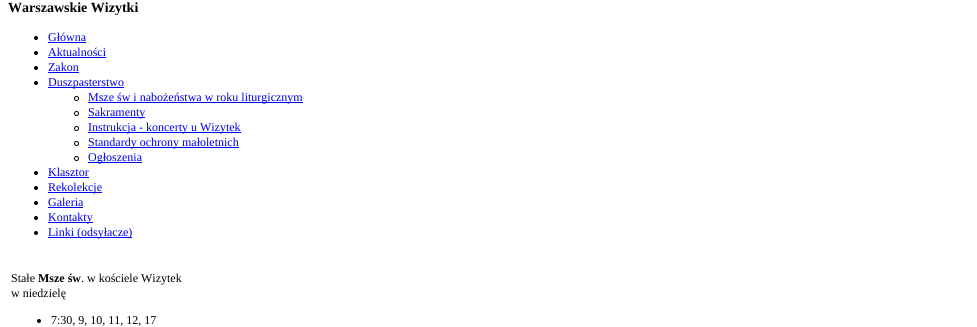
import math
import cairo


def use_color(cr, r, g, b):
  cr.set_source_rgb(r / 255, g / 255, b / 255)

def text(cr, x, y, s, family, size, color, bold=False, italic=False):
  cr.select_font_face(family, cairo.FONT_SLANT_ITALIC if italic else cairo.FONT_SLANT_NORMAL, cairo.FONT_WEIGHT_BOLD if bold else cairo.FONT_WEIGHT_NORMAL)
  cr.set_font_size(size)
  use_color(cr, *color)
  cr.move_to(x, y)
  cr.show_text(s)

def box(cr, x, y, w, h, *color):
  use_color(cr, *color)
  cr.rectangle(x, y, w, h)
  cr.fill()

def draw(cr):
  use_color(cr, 255, 255, 255)
  cr.paint()
  use_color(cr, 0, 0, 0)
  cr.arc(36, 38, 2, 0, 2 * math.pi)
  cr.fill()
  box(cr, 48, 42, 38, 1, 0, 0, 238)
  use_color(cr, 0, 0, 0)
  cr.arc(36, 53, 2, 0, 2 * math.pi)
  cr.fill()
  box(cr, 48, 57, 58, 1, 0, 0, 238)
  use_color(cr, 0, 0, 0)
  cr.arc(36, 68, 2, 0, 2 * math.pi)
  cr.fill()
  box(cr, 48, 72, 31, 1, 0, 0, 238)
  use_color(cr, 0, 0, 0)
  cr.arc(36, 83, 2, 0, 2 * math.pi)
  cr.fill()
  box(cr, 48, 87, 76, 1, 0, 0, 238)
  cr.arc(76.5, 98.5, 2, 0, 2 * math.pi)
  use_color(cr, 0, 0, 0)
  cr.set_line_width(1)
  cr.stroke()
  box(cr, 88, 102, 215, 1, 0, 0, 238)
  cr.arc(76.5, 113.5, 2, 0, 2 * math.pi)
  use_color(cr, 0, 0, 0)
  cr.stroke()
  box(cr, 88, 117, 57, 1, 0, 0, 238)
  cr.arc(76.5, 128.5, 2, 0, 2 * math.pi)
  use_color(cr, 0, 0, 0)
  cr.stroke()
  box(cr, 88, 132, 153, 1, 0, 0, 238)
  cr.arc(76.5, 143.5, 2, 0, 2 * math.pi)
  use_color(cr, 0, 0, 0)
  cr.stroke()
  box(cr, 88, 147, 151, 1, 0, 0, 238)
  cr.arc(76.5, 158.5, 2, 0, 2 * math.pi)
  use_color(cr, 0, 0, 0)
  cr.stroke()
  box(cr, 88, 162, 54, 1, 0, 0, 238)
  use_color(cr, 0, 0, 0)
  cr.arc(36, 173, 2, 0, 2 * math.pi)
  cr.fill()
  box(cr, 48, 177, 41, 1, 0, 0, 238)
  use_color(cr, 0, 0, 0)
  cr.arc(36, 188, 2, 0, 2 * math.pi)
  cr.fill()
  box(cr, 48, 192, 54, 1, 0, 0, 238)
  use_color(cr, 0, 0, 0)
  cr.arc(36, 203, 2, 0, 2 * math.pi)
  cr.fill()
  box(cr, 48, 207, 35, 1, 0, 0, 238)
  use_color(cr, 0, 0, 0)
  cr.arc(36, 218, 2, 0, 2 * math.pi)
  cr.fill()
  box(cr, 48, 222, 45, 1, 0, 0, 238)
  use_color(cr, 0, 0, 0)
  cr.arc(36, 233, 2, 0, 2 * math.pi)
  cr.fill()
  box(cr, 48, 237, 84, 1, 0, 0, 238)
  use_color(cr, 0, 0, 0)
  cr.arc(39, 321, 2, 0, 2 * math.pi)
  cr.fill()
  text(cr, 8, 12, "Warszawskie Wizytki", "Liberation Serif", 14, (0, 0, 0), bold=True)
  text(cr, 48, 41, "Główna", "Liberation Serif", 12, (0, 0, 238))
  text(cr, 48, 56, "Aktualności", "Liberation Serif", 12, (0, 0, 238))
  text(cr, 48, 71, "Zakon", "Liberation Serif", 12, (0, 0, 238))
  text(cr, 48, 86, "Duszpasterstwo", "Liberation Serif", 12, (0, 0, 238))
  text(cr, 88, 101, "Msze św i nabożeństwa w roku liturgicznym", "Liberation Serif", 12, (0, 0, 238))
  text(cr, 88, 116, "Sakramenty", "Liberation Serif", 12, (0, 0, 238))
  text(cr, 88, 131, "Instrukcja - koncerty u Wizytek", "Liberation Serif", 12, (0, 0, 238))
  text(cr, 88, 146, "Standardy ochrony małoletnich", "Liberation Serif", 12, (0, 0, 238))
  text(cr, 88, 161, "Ogłoszenia", "Liberation Serif", 12, (0, 0, 238))
  text(cr, 48, 176, "Klasztor", "Liberation Serif", 12, (0, 0, 238))
  text(cr, 48, 191, "Rekolekcje", "Liberation Serif", 12, (0, 0, 238))
  text(cr, 48, 206, "Galeria", "Liberation Serif", 12, (0, 0, 238))
  text(cr, 48, 221, "Kontakty", "Liberation Serif", 12, (0, 0, 238))
  text(cr, 48, 236, "Linki (odsyłacze)", "Liberation Serif", 12, (0, 0, 238))
  text(cr, 11, 282, "Stałe", "Liberation Serif", 12, (0, 0, 0))
  text(cr, 38, 282, "Msze św", "Liberation Serif", 12, (0, 0, 0), bold=True)
  text(cr, 81, 282, ". w kościele Wizytek", "Liberation Serif", 12, (0, 0, 0))
  text(cr, 11, 297, "w niedzielę", "Liberation Serif", 12, (0, 0, 0))
  text(cr, 51, 324, "7:30, 9, 10, 11, 12, 17", "Liberation Serif", 12, (0, 0, 0))


surface = cairo.ImageSurface(cairo.FORMAT_RGB24, 977, 327)
cr = cairo.Context(surface)
options = cairo.FontOptions()
options.set_hint_metrics(cairo.HINT_METRICS_OFF)
options.set_hint_style(cairo.HINT_STYLE_NONE)
cr.set_font_options(options)
cr.set_miter_limit(4)
draw(cr)
surface.write_to_png("out.png")
